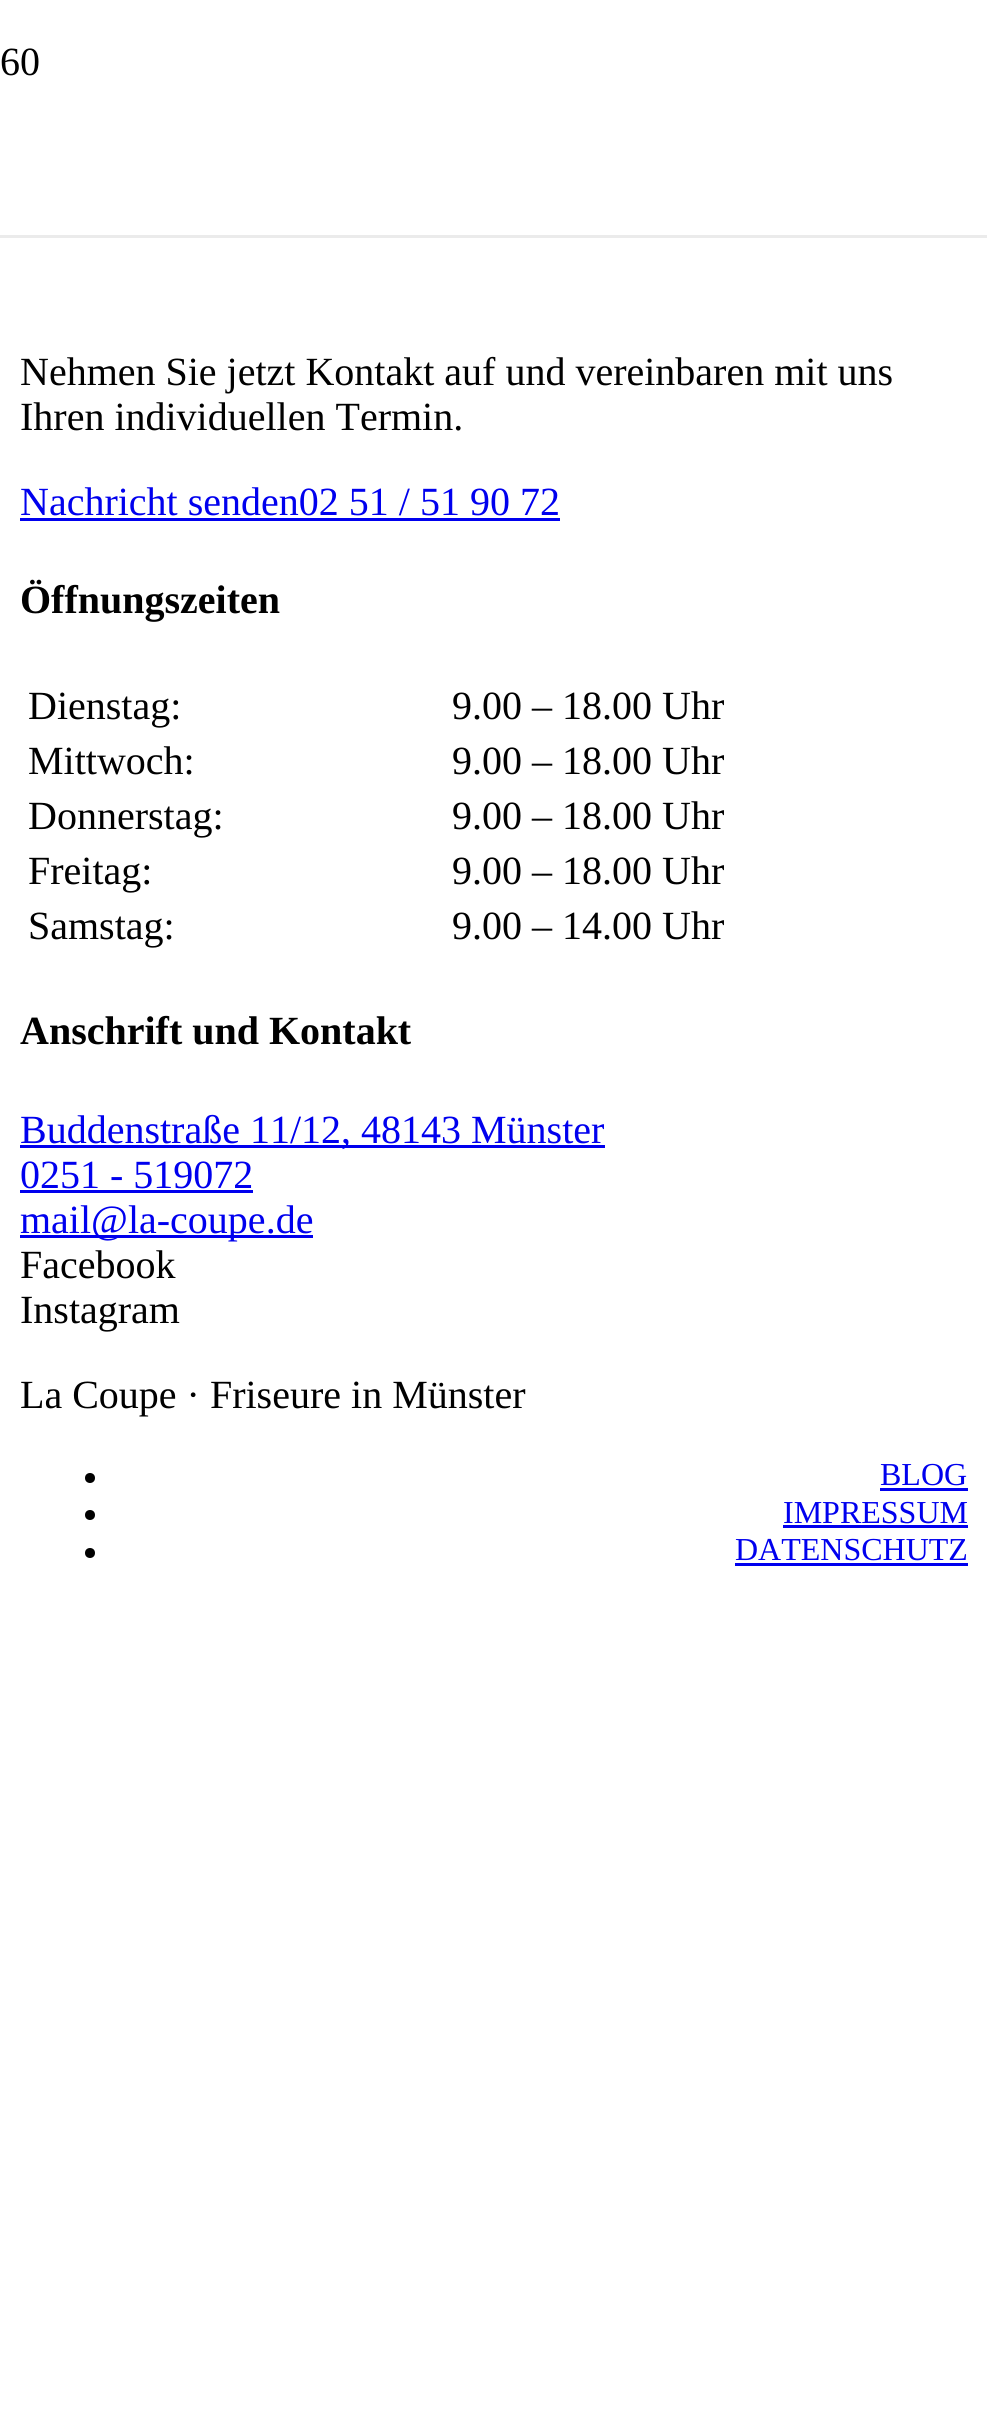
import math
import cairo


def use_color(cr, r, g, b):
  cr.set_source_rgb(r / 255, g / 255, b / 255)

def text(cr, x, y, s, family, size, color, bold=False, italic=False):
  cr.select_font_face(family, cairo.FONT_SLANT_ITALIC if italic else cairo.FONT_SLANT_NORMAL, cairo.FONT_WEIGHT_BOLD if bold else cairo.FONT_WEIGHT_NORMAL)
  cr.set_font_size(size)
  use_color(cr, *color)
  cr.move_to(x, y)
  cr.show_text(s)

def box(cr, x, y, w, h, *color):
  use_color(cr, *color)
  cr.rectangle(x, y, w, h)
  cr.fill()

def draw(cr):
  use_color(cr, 255, 255, 255)
  cr.paint()
  use_color(cr, 235, 235, 235)
  cr.new_path()
  cr.move_to(0, 235)
  cr.line_to(0, 238)
  cr.line_to(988, 238)
  cr.line_to(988, 88)
  cr.line_to(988, 235)
  cr.close_path()
  cr.fill()
  box(cr, 20, 518, 540, 3, 0, 0, 238)
  box(cr, 20, 1145, 585, 3, 0, 0, 238)
  box(cr, 20, 1190, 233, 3, 0, 0, 238)
  box(cr, 20, 1235, 293, 3, 0, 0, 238)
  use_color(cr, 0, 0, 0)
  cr.arc(90, 1478, 5, 0, 2 * math.pi)
  cr.fill()
  box(cr, 880, 1488, 88, 3, 0, 0, 238)
  use_color(cr, 0, 0, 0)
  cr.arc(90, 1515, 5, 0, 2 * math.pi)
  cr.fill()
  box(cr, 783, 1525, 185, 3, 0, 0, 238)
  use_color(cr, 0, 0, 0)
  cr.arc(90, 1553, 5, 0, 2 * math.pi)
  cr.fill()
  box(cr, 735, 1563, 233, 3, 0, 0, 238)
  text(cr, 0, 75, "60", "Liberation Serif", 40, (0, 0, 0))
  text(cr, 20, 385, "Nehmen Sie jetzt Kontakt auf und vereinbaren mit uns", "Liberation Serif", 40, (0, 0, 0))
  text(cr, 20, 430, "Ihren individuellen Termin.", "Liberation Serif", 40, (0, 0, 0))
  text(cr, 20, 515, "Nachricht senden02 51 / 51 90 72", "Liberation Serif", 40, (0, 0, 238))
  text(cr, 20, 613, "Öffnungszeiten", "Liberation Serif", 40, (0, 0, 0), bold=True)
  text(cr, 28, 719, "Dienstag:", "Liberation Serif", 40, (0, 0, 0))
  text(cr, 452, 719, "9.00 – 18.00 Uhr", "Liberation Serif", 40, (0, 0, 0))
  text(cr, 28, 774, "Mittwoch:", "Liberation Serif", 40, (0, 0, 0))
  text(cr, 452, 774, "9.00 – 18.00 Uhr", "Liberation Serif", 40, (0, 0, 0))
  text(cr, 28, 829, "Donnerstag:", "Liberation Serif", 40, (0, 0, 0))
  text(cr, 452, 829, "9.00 – 18.00 Uhr", "Liberation Serif", 40, (0, 0, 0))
  text(cr, 28, 884, "Freitag:", "Liberation Serif", 40, (0, 0, 0))
  text(cr, 452, 884, "9.00 – 18.00 Uhr", "Liberation Serif", 40, (0, 0, 0))
  text(cr, 28, 939, "Samstag:", "Liberation Serif", 40, (0, 0, 0))
  text(cr, 452, 939, "9.00 – 14.00 Uhr", "Liberation Serif", 40, (0, 0, 0))
  text(cr, 20, 1044, "Anschrift und Kontakt", "Liberation Serif", 40, (0, 0, 0), bold=True)
  text(cr, 20, 1143, "Buddenstraße 11/12, 48143 Münster", "Liberation Serif", 40, (0, 0, 238))
  text(cr, 20, 1188, "0251 - 519072", "Liberation Serif", 40, (0, 0, 238))
  text(cr, 20, 1233, "mail@la-coupe.de", "Liberation Serif", 40, (0, 0, 238))
  text(cr, 20, 1278, "Facebook", "Liberation Serif", 40, (0, 0, 0))
  text(cr, 20, 1323, "Instagram", "Liberation Serif", 40, (0, 0, 0))
  text(cr, 20, 1408, "La Coupe · Friseure in Münster", "Liberation Serif", 40, (0, 0, 0))
  text(cr, 880, 1485, "BLOG", "Liberation Serif", 32, (0, 0, 238))
  text(cr, 783, 1523, "IMPRESSUM", "Liberation Serif", 32, (0, 0, 238))
  text(cr, 735, 1560, "DATENSCHUTZ", "Liberation Serif", 32, (0, 0, 238))


surface = cairo.ImageSurface(cairo.FORMAT_RGB24, 987, 2432)
cr = cairo.Context(surface)
options = cairo.FontOptions()
options.set_hint_metrics(cairo.HINT_METRICS_OFF)
options.set_hint_style(cairo.HINT_STYLE_NONE)
cr.set_font_options(options)
cr.set_miter_limit(4)
draw(cr)
surface.write_to_png("out.png")
